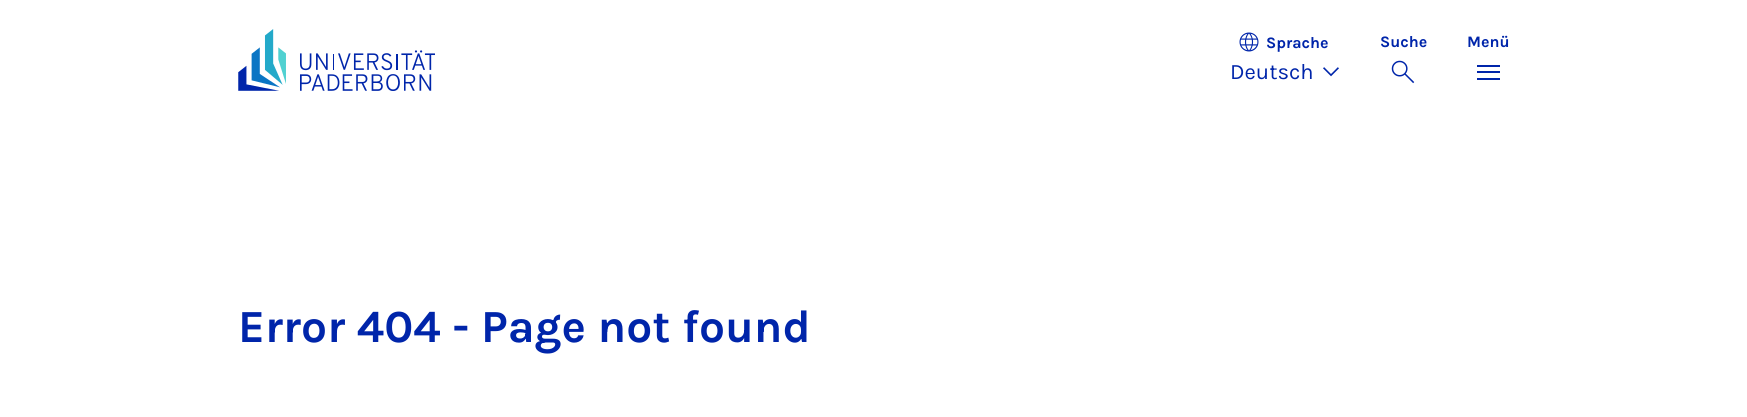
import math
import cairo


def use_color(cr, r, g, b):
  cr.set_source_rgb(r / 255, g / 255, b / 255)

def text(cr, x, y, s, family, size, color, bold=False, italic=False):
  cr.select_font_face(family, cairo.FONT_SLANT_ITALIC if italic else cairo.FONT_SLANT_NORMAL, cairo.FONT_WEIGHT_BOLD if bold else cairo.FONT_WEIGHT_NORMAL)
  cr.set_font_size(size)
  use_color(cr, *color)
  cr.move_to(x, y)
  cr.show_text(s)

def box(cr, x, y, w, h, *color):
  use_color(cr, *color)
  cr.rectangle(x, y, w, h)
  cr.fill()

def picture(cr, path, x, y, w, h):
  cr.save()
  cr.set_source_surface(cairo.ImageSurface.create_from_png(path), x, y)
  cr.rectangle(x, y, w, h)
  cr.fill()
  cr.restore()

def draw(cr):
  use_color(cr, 255, 255, 255)
  cr.paint()
  picture(cr, "img_01.png", 238, 29, 197, 62)
  picture(cr, "img_02.png", 1239, 32, 20, 20)
  picture(cr, "img_03.png", 1323, 67, 16, 10)
  picture(cr, "img_04.png", 1391, 60, 24, 24)
  box(cr, 1477, 71, 23, 2, 0, 37, 170)
  box(cr, 1477, 65, 23, 2, 0, 37, 170)
  box(cr, 1477, 78, 23, 2, 0, 37, 170)
  text(cr, 1266, 48, "Sprache", "Karla", 16, (0, 37, 170), bold=True)
  text(cr, 1230, 79, "Deutsch", "Karla", 22, (0, 37, 170))
  text(cr, 1380, 47, "Suche", "Karla", 16, (0, 37, 170), bold=True)
  text(cr, 1467, 47, "Menü", "Karla", 16, (0, 37, 170), bold=True)
  text(cr, 238, 342, "Error 404 - Page not found", "Karla", 46, (0, 37, 170), bold=True)


surface = cairo.ImageSurface(cairo.FORMAT_RGB24, 1747, 417)
cr = cairo.Context(surface)
options = cairo.FontOptions()
options.set_hint_metrics(cairo.HINT_METRICS_OFF)
options.set_hint_style(cairo.HINT_STYLE_NONE)
cr.set_font_options(options)
cr.set_miter_limit(4)
draw(cr)
surface.write_to_png("out.png")
